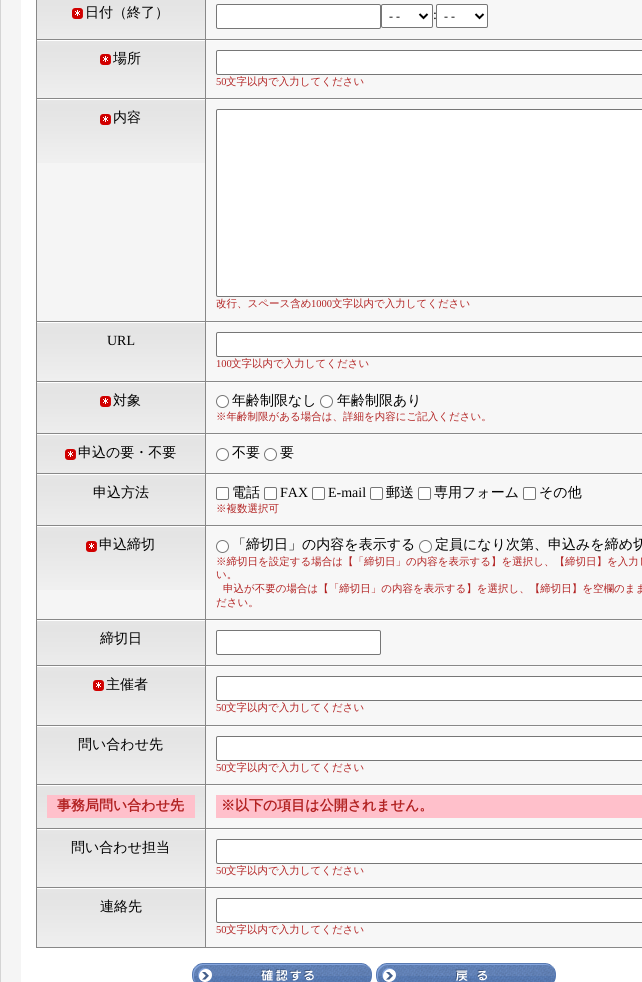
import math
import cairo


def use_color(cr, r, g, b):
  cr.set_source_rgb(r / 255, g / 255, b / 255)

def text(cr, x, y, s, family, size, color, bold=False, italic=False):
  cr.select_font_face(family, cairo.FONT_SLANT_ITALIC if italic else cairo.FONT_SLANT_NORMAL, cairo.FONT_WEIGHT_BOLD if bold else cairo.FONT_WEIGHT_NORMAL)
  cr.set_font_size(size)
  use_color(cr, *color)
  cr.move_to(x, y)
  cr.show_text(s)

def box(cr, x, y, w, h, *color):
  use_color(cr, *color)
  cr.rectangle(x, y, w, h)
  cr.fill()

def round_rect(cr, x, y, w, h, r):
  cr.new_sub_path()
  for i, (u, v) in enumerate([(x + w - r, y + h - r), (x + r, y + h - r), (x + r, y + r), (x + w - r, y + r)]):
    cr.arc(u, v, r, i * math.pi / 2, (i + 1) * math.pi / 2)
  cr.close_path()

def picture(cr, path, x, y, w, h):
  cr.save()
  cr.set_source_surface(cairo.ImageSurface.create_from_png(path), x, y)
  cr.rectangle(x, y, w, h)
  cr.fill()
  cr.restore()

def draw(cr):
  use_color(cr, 245, 245, 245)
  cr.paint()
  cr.rectangle(0.5, -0.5, 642, 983)
  use_color(cr, 212, 212, 212)
  cr.set_line_width(1)
  cr.stroke()
  box(cr, 21, 0, 621, 982, 255, 255, 255)
  picture(cr, "img_01.png", 37, 0, 168, 39)
  picture(cr, "img_02.png", 72, 8, 11, 11)
  box(cr, 206, 0, 436, 39, 247, 247, 247)
  box(cr, 205, 39, 437, 1, 136, 136, 136)
  box(cr, 205, 40, 437, 1, 252, 252, 252)
  box(cr, 205, 98, 437, 1, 136, 136, 136)
  box(cr, 205, 99, 437, 1, 252, 252, 252)
  box(cr, 205, 321, 437, 1, 136, 136, 136)
  box(cr, 205, 322, 437, 1, 252, 252, 252)
  box(cr, 205, 381, 437, 1, 136, 136, 136)
  box(cr, 205, 382, 437, 1, 252, 252, 252)
  box(cr, 205, 433, 437, 1, 136, 136, 136)
  box(cr, 205, 434, 437, 1, 252, 252, 252)
  box(cr, 205, 473, 437, 1, 136, 136, 136)
  box(cr, 205, 474, 437, 1, 252, 252, 252)
  box(cr, 205, 525, 437, 1, 136, 136, 136)
  box(cr, 205, 526, 437, 1, 252, 252, 252)
  box(cr, 205, 619, 437, 1, 136, 136, 136)
  box(cr, 205, 620, 437, 1, 252, 252, 252)
  box(cr, 205, 665, 437, 1, 136, 136, 136)
  box(cr, 205, 666, 437, 1, 252, 252, 252)
  box(cr, 205, 725, 437, 1, 136, 136, 136)
  box(cr, 205, 726, 437, 1, 252, 252, 252)
  box(cr, 205, 784, 437, 1, 136, 136, 136)
  box(cr, 205, 785, 437, 1, 252, 252, 252)
  box(cr, 205, 828, 437, 1, 136, 136, 136)
  box(cr, 205, 829, 437, 1, 252, 252, 252)
  box(cr, 205, 887, 437, 1, 136, 136, 136)
  box(cr, 205, 888, 437, 1, 252, 252, 252)
  box(cr, 205, 947, 437, 1, 136, 136, 136)
  box(cr, 205, 887, 1, 61, 136, 136, 136)
  box(cr, 36, 887, 170, 1, 136, 136, 136)
  box(cr, 205, 828, 1, 60, 136, 136, 136)
  box(cr, 36, 828, 170, 1, 136, 136, 136)
  box(cr, 205, 784, 1, 45, 136, 136, 136)
  box(cr, 36, 784, 170, 1, 136, 136, 136)
  box(cr, 205, 725, 1, 60, 136, 136, 136)
  box(cr, 36, 725, 170, 1, 136, 136, 136)
  box(cr, 205, 665, 1, 61, 136, 136, 136)
  box(cr, 36, 665, 170, 1, 136, 136, 136)
  box(cr, 205, 619, 1, 47, 136, 136, 136)
  box(cr, 36, 619, 170, 1, 136, 136, 136)
  box(cr, 205, 525, 1, 95, 136, 136, 136)
  box(cr, 36, 525, 170, 1, 136, 136, 136)
  box(cr, 205, 473, 1, 53, 136, 136, 136)
  box(cr, 36, 473, 170, 1, 136, 136, 136)
  box(cr, 205, 433, 1, 41, 136, 136, 136)
  box(cr, 36, 433, 170, 1, 136, 136, 136)
  box(cr, 205, 381, 1, 53, 136, 136, 136)
  box(cr, 36, 381, 170, 1, 136, 136, 136)
  box(cr, 205, 321, 1, 61, 136, 136, 136)
  box(cr, 36, 321, 170, 1, 136, 136, 136)
  box(cr, 205, 98, 1, 224, 136, 136, 136)
  box(cr, 36, 98, 170, 1, 136, 136, 136)
  box(cr, 205, 39, 1, 60, 136, 136, 136)
  box(cr, 36, 39, 170, 1, 136, 136, 136)
  box(cr, 205, 0, 1, 40, 136, 136, 136)
  use_color(cr, 255, 255, 255)
  round_rect(cr, 216.5, 4.5, 164, 24, 1.5)
  cr.fill_preserve()
  use_color(cr, 118, 118, 118)
  cr.stroke()
  use_color(cr, 255, 255, 255)
  round_rect(cr, 381.5, 4.5, 51, 23, 1.5)
  cr.fill_preserve()
  use_color(cr, 118, 118, 118)
  cr.stroke()
  cr.new_path()
  cr.move_to(419.5, 14)
  cr.line_to(423.5, 18)
  cr.line_to(427.5, 14)
  use_color(cr, 0, 0, 0)
  cr.set_line_width(2)
  cr.stroke()
  use_color(cr, 255, 255, 255)
  round_rect(cr, 436.5, 4.5, 51, 23, 1.5)
  cr.fill_preserve()
  use_color(cr, 118, 118, 118)
  cr.set_line_width(1)
  cr.stroke()
  cr.new_path()
  cr.move_to(475.5, 14)
  cr.line_to(479.5, 18)
  cr.line_to(483.5, 14)
  use_color(cr, 0, 0, 0)
  cr.set_line_width(2)
  cr.stroke()
  picture(cr, "img_03.png", 37, 40, 168, 58)
  box(cr, 36, 947, 170, 1, 136, 136, 136)
  box(cr, 36, 887, 1, 61, 136, 136, 136)
  box(cr, 36, 828, 1, 60, 136, 136, 136)
  box(cr, 36, 784, 1, 45, 136, 136, 136)
  box(cr, 36, 725, 1, 60, 136, 136, 136)
  box(cr, 36, 665, 1, 61, 136, 136, 136)
  box(cr, 36, 619, 1, 47, 136, 136, 136)
  box(cr, 36, 525, 1, 95, 136, 136, 136)
  box(cr, 36, 473, 1, 53, 136, 136, 136)
  box(cr, 36, 433, 1, 41, 136, 136, 136)
  box(cr, 36, 381, 1, 53, 136, 136, 136)
  box(cr, 36, 321, 1, 61, 136, 136, 136)
  box(cr, 36, 98, 1, 224, 136, 136, 136)
  box(cr, 36, 0, 1, 99, 136, 136, 136)
  picture(cr, "img_02.png", 100, 54, 11, 11)
  box(cr, 206, 41, 436, 57, 247, 247, 247)
  use_color(cr, 255, 255, 255)
  round_rect(cr, 216.5, 50.5, 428, 24, 1.5)
  cr.fill_preserve()
  use_color(cr, 118, 118, 118)
  cr.set_line_width(1)
  cr.stroke()
  box(cr, 37, 163, 168, 158, 245, 245, 245)
  picture(cr, "img_04.png", 37, 99, 168, 64)
  picture(cr, "img_02.png", 100, 114, 11, 11)
  box(cr, 206, 100, 436, 221, 247, 247, 247)
  use_color(cr, 255, 255, 255)
  round_rect(cr, 216.5, 109.5, 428, 187, 1.5)
  cr.fill_preserve()
  use_color(cr, 118, 118, 118)
  cr.stroke()
  picture(cr, "img_05.png", 37, 322, 168, 59)
  box(cr, 206, 323, 436, 58, 247, 247, 247)
  use_color(cr, 255, 255, 255)
  round_rect(cr, 216.5, 332.5, 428, 24, 1.5)
  cr.fill_preserve()
  use_color(cr, 118, 118, 118)
  cr.stroke()
  picture(cr, "img_06.png", 37, 382, 168, 51)
  picture(cr, "img_02.png", 100, 396, 11, 11)
  box(cr, 206, 383, 436, 50, 247, 247, 247)
  use_color(cr, 255, 255, 255)
  cr.arc(222.5, 401.5, 6, 0, 2 * math.pi)
  cr.fill_preserve()
  use_color(cr, 118, 118, 118)
  cr.stroke()
  use_color(cr, 255, 255, 255)
  cr.arc(326.5, 401.5, 6, 0, 2 * math.pi)
  cr.fill_preserve()
  use_color(cr, 118, 118, 118)
  cr.stroke()
  picture(cr, "img_07.png", 37, 434, 168, 39)
  picture(cr, "img_02.png", 65, 449, 11, 11)
  box(cr, 206, 435, 436, 38, 247, 247, 247)
  use_color(cr, 255, 255, 255)
  cr.arc(222.5, 454.5, 6, 0, 2 * math.pi)
  cr.fill_preserve()
  use_color(cr, 118, 118, 118)
  cr.stroke()
  use_color(cr, 255, 255, 255)
  cr.arc(270.5, 454.5, 6, 0, 2 * math.pi)
  cr.fill_preserve()
  use_color(cr, 118, 118, 118)
  cr.stroke()
  picture(cr, "img_06.png", 37, 474, 168, 51)
  box(cr, 206, 475, 436, 50, 247, 247, 247)
  use_color(cr, 255, 255, 255)
  round_rect(cr, 216.5, 487.5, 12, 12, 1.5)
  cr.fill_preserve()
  use_color(cr, 118, 118, 118)
  cr.stroke()
  use_color(cr, 255, 255, 255)
  round_rect(cr, 264.5, 487.5, 12, 12, 1.5)
  cr.fill_preserve()
  use_color(cr, 118, 118, 118)
  cr.stroke()
  use_color(cr, 255, 255, 255)
  round_rect(cr, 312.5, 487.5, 12, 12, 1.5)
  cr.fill_preserve()
  use_color(cr, 118, 118, 118)
  cr.stroke()
  use_color(cr, 255, 255, 255)
  round_rect(cr, 370.5, 487.5, 12, 12, 1.5)
  cr.fill_preserve()
  use_color(cr, 118, 118, 118)
  cr.stroke()
  use_color(cr, 255, 255, 255)
  round_rect(cr, 418.5, 487.5, 12, 12, 1.5)
  cr.fill_preserve()
  use_color(cr, 118, 118, 118)
  cr.stroke()
  use_color(cr, 255, 255, 255)
  round_rect(cr, 523.5, 487.5, 12, 12, 1.5)
  cr.fill_preserve()
  use_color(cr, 118, 118, 118)
  cr.stroke()
  box(cr, 37, 590, 168, 29, 245, 245, 245)
  picture(cr, "img_04.png", 37, 526, 168, 64)
  picture(cr, "img_02.png", 86, 541, 11, 11)
  box(cr, 206, 527, 436, 92, 247, 247, 247)
  use_color(cr, 255, 255, 255)
  cr.arc(222.5, 546.5, 6, 0, 2 * math.pi)
  cr.fill_preserve()
  use_color(cr, 118, 118, 118)
  cr.stroke()
  use_color(cr, 255, 255, 255)
  cr.arc(425.5, 546.5, 6, 0, 2 * math.pi)
  cr.fill_preserve()
  use_color(cr, 118, 118, 118)
  cr.stroke()
  picture(cr, "img_08.png", 37, 620, 168, 45)
  box(cr, 206, 621, 436, 44, 247, 247, 247)
  use_color(cr, 255, 255, 255)
  round_rect(cr, 216.5, 630.5, 164, 24, 1.5)
  cr.fill_preserve()
  use_color(cr, 118, 118, 118)
  cr.stroke()
  picture(cr, "img_05.png", 37, 666, 168, 59)
  picture(cr, "img_02.png", 93, 680, 11, 11)
  box(cr, 206, 667, 436, 58, 247, 247, 247)
  use_color(cr, 255, 255, 255)
  round_rect(cr, 216.5, 676.5, 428, 24, 1.5)
  cr.fill_preserve()
  use_color(cr, 118, 118, 118)
  cr.stroke()
  picture(cr, "img_03.png", 37, 726, 168, 58)
  box(cr, 206, 727, 436, 57, 247, 247, 247)
  use_color(cr, 255, 255, 255)
  round_rect(cr, 216.5, 736.5, 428, 24, 1.5)
  cr.fill_preserve()
  use_color(cr, 118, 118, 118)
  cr.stroke()
  picture(cr, "img_09.png", 37, 785, 168, 43)
  box(cr, 47, 795, 148, 23, 255, 192, 203)
  box(cr, 206, 786, 436, 42, 247, 247, 247)
  box(cr, 216, 795, 426, 23, 255, 192, 203)
  picture(cr, "img_03.png", 37, 829, 168, 58)
  box(cr, 206, 830, 436, 57, 247, 247, 247)
  use_color(cr, 255, 255, 255)
  round_rect(cr, 216.5, 839.5, 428, 24, 1.5)
  cr.fill_preserve()
  use_color(cr, 118, 118, 118)
  cr.stroke()
  picture(cr, "img_05.png", 37, 888, 168, 59)
  box(cr, 206, 889, 436, 58, 247, 247, 247)
  use_color(cr, 255, 255, 255)
  round_rect(cr, 216.5, 898.5, 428, 24, 1.5)
  cr.fill_preserve()
  use_color(cr, 118, 118, 118)
  cr.stroke()
  picture(cr, "img_10.png", 192, 963, 180, 19)
  picture(cr, "img_11.png", 376, 963, 180, 19)
  text(cr, 85, 17, "日付（終了）", "WenQuanYi Zen Hei Medium", 14, (0, 0, 0))
  text(cr, 389, 20, "- -", "Liberation Serif", 12, (0, 0, 0))
  text(cr, 433, 19, ":", "Liberation Serif", 14, (0, 0, 0))
  text(cr, 444, 20, "- -", "Liberation Serif", 12, (0, 0, 0))
  text(cr, 113, 63, "場所", "WenQuanYi Zen Hei Medium", 14, (0, 0, 0))
  text(cr, 216, 85, "50", "Liberation Serif", 10.5, (178, 34, 34))
  text(cr, 226, 85, "文字以内で入力してください", "WenQuanYi Zen Hei Medium", 10.5, (178, 34, 34))
  text(cr, 113, 122, "内容", "WenQuanYi Zen Hei Medium", 14, (0, 0, 0))
  text(cr, 216, 307, "改行、スペース含め", "WenQuanYi Zen Hei Medium", 10.5, (178, 34, 34))
  text(cr, 311, 307, "1000", "Liberation Serif", 10.5, (178, 34, 34))
  text(cr, 332, 307, "文字以内で入力してください", "WenQuanYi Zen Hei Medium", 10.5, (178, 34, 34))
  text(cr, 107, 345, "URL", "Liberation Serif", 14, (0, 0, 0))
  text(cr, 216, 367, "100", "Liberation Serif", 10.5, (178, 34, 34))
  text(cr, 231, 367, "文字以内で入力してください", "WenQuanYi Zen Hei Medium", 10.5, (178, 34, 34))
  text(cr, 113, 405, "対象", "WenQuanYi Zen Hei Medium", 14, (0, 0, 0))
  text(cr, 232, 405, "年齢制限なし", "WenQuanYi Zen Hei Medium", 14, (0, 0, 0))
  text(cr, 337, 405, "年齢制限あり", "WenQuanYi Zen Hei Medium", 14, (0, 0, 0))
  text(cr, 216, 420, "※年齢制限がある場合は、詳細を内容にご記入ください。", "WenQuanYi Zen Hei Medium", 10.5, (178, 34, 34))
  text(cr, 78, 457, "申込の要・不要", "WenQuanYi Zen Hei Medium", 14, (0, 0, 0))
  text(cr, 232, 457, "不要", "WenQuanYi Zen Hei Medium", 14, (0, 0, 0))
  text(cr, 280, 457, "要", "WenQuanYi Zen Hei Medium", 14, (0, 0, 0))
  text(cr, 93, 497, "申込方法", "WenQuanYi Zen Hei Medium", 14, (0, 0, 0))
  text(cr, 232, 497, "電話", "WenQuanYi Zen Hei Medium", 14, (0, 0, 0))
  text(cr, 280, 497, "FAX", "Liberation Serif", 14, (0, 0, 0))
  text(cr, 328, 497, "E-mail", "Liberation Serif", 14, (0, 0, 0))
  text(cr, 386, 497, "郵送", "WenQuanYi Zen Hei Medium", 14, (0, 0, 0))
  text(cr, 434, 497, "専用フォーム", "WenQuanYi Zen Hei Medium", 14, (0, 0, 0))
  text(cr, 539, 497, "その他", "WenQuanYi Zen Hei Medium", 14, (0, 0, 0))
  text(cr, 216, 512, "※複数選択可", "WenQuanYi Zen Hei Medium", 10.5, (178, 34, 34))
  text(cr, 99, 549, "申込締切", "WenQuanYi Zen Hei Medium", 14, (0, 0, 0))
  text(cr, 232, 549, "「締切日」の内容を表示する", "WenQuanYi Zen Hei Medium", 14, (0, 0, 0))
  text(cr, 435, 549, "定員になり次第、申込みを締め切", "WenQuanYi Zen Hei Medium", 14, (0, 0, 0))
  text(cr, 216, 565, "※締切日を設定する場合は【「締切日」の内容を表示する】を選択し、【締切日】を入力し", "WenQuanYi Zen Hei Medium", 10.5, (178, 34, 34))
  text(cr, 216, 578, "い。", "WenQuanYi Zen Hei Medium", 10.5, (178, 34, 34))
  text(cr, 223, 592, "申込が不要の場合は【「締切日」の内容を表示する】を選択し、【締切日】を空欄のまま", "WenQuanYi Zen Hei Medium", 10.5, (178, 34, 34))
  text(cr, 216, 606, "ださい。", "WenQuanYi Zen Hei Medium", 10.5, (178, 34, 34))
  text(cr, 100, 643, "締切日", "WenQuanYi Zen Hei Medium", 14, (0, 0, 0))
  text(cr, 106, 689, "主催者", "WenQuanYi Zen Hei Medium", 14, (0, 0, 0))
  text(cr, 216, 711, "50", "Liberation Serif", 10.5, (178, 34, 34))
  text(cr, 226, 711, "文字以内で入力してください", "WenQuanYi Zen Hei Medium", 10.5, (178, 34, 34))
  text(cr, 78, 749, "問い合わせ先", "WenQuanYi Zen Hei Medium", 14, (0, 0, 0))
  text(cr, 216, 771, "50", "Liberation Serif", 10.5, (178, 34, 34))
  text(cr, 226, 771, "文字以内で入力してください", "WenQuanYi Zen Hei Medium", 10.5, (178, 34, 34))
  text(cr, 57, 810, "事務局問い合わせ先", "WenQuanYi Zen Hei", 14, (178, 34, 34), bold=True)
  text(cr, 221, 810, "※以下の項目は公開されません。", "WenQuanYi Zen Hei", 14, (178, 34, 34), bold=True)
  text(cr, 71, 852, "問い合わせ担当", "WenQuanYi Zen Hei Medium", 14, (0, 0, 0))
  text(cr, 216, 874, "50", "Liberation Serif", 10.5, (178, 34, 34))
  text(cr, 226, 874, "文字以内で入力してください", "WenQuanYi Zen Hei Medium", 10.5, (178, 34, 34))
  text(cr, 100, 911, "連絡先", "WenQuanYi Zen Hei Medium", 14, (0, 0, 0))
  text(cr, 216, 933, "50", "Liberation Serif", 10.5, (178, 34, 34))
  text(cr, 226, 933, "文字以内で入力してください", "WenQuanYi Zen Hei Medium", 10.5, (178, 34, 34))


surface = cairo.ImageSurface(cairo.FORMAT_RGB24, 642, 982)
cr = cairo.Context(surface)
options = cairo.FontOptions()
options.set_hint_metrics(cairo.HINT_METRICS_OFF)
options.set_hint_style(cairo.HINT_STYLE_NONE)
cr.set_font_options(options)
cr.set_miter_limit(4)
draw(cr)
surface.write_to_png("out.png")
